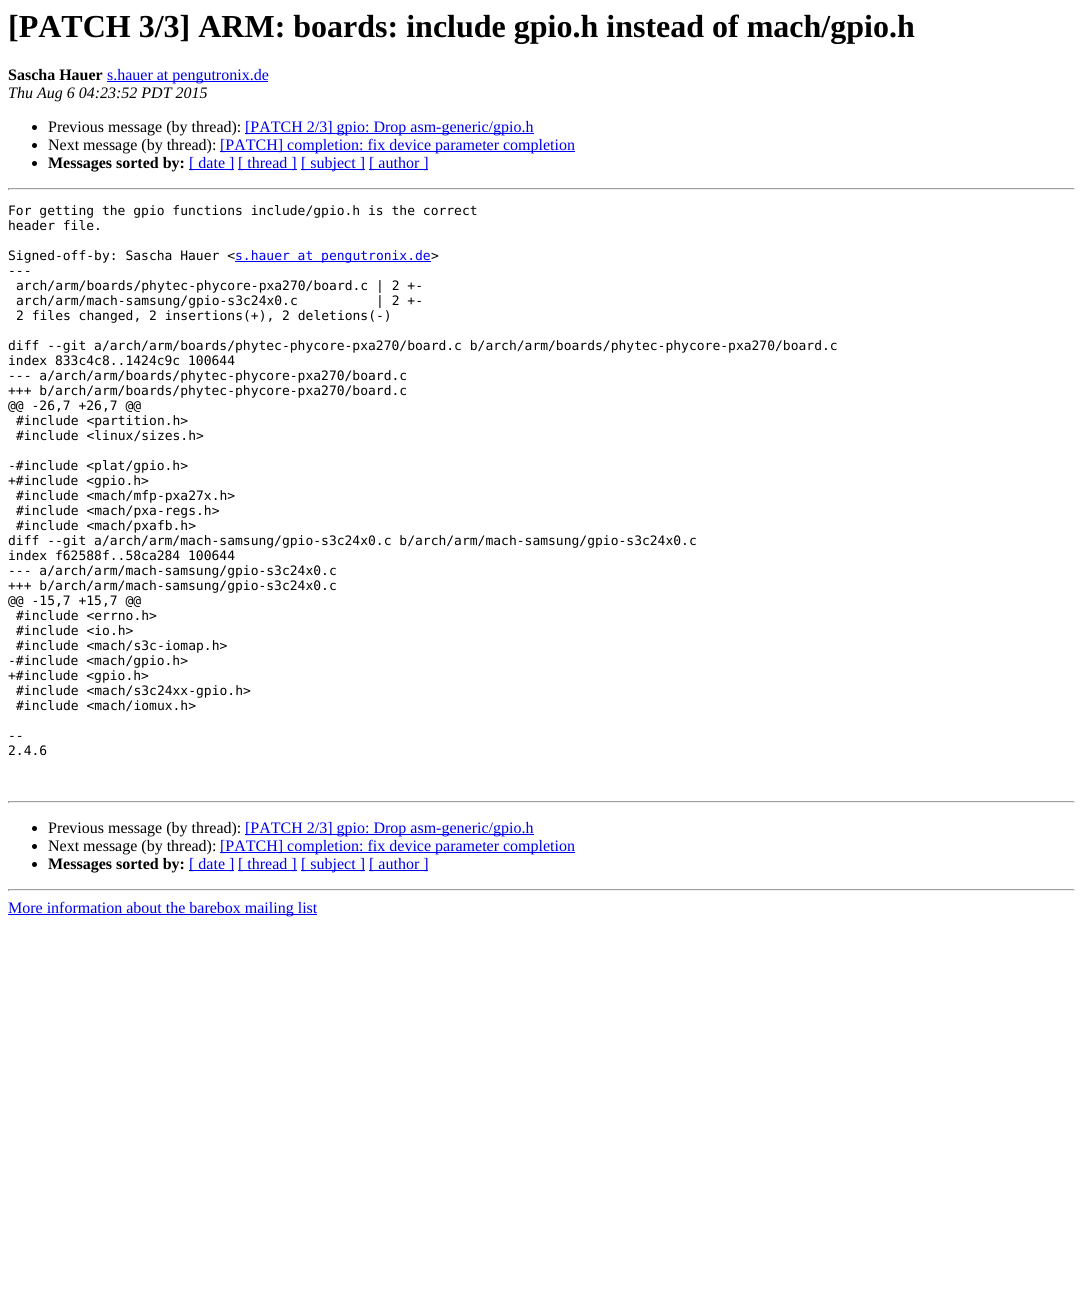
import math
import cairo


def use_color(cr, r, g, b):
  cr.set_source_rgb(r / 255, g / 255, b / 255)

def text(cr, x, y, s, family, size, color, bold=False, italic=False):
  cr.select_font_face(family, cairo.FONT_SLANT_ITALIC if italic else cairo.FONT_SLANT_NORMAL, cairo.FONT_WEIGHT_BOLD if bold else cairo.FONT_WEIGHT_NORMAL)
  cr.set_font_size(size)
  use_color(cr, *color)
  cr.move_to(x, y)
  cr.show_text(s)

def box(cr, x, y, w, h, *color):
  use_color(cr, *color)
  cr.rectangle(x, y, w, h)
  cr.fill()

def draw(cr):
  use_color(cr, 255, 255, 255)
  cr.paint()
  box(cr, 107, 81, 161, 1, 0, 0, 238)
  use_color(cr, 0, 0, 0)
  cr.arc(34.5, 127.5, 2.5, 0, 2 * math.pi)
  cr.fill()
  box(cr, 245, 133, 289, 1, 0, 0, 238)
  use_color(cr, 0, 0, 0)
  cr.arc(34.5, 145.5, 2.5, 0, 2 * math.pi)
  cr.fill()
  box(cr, 220, 151, 355, 1, 0, 0, 238)
  use_color(cr, 0, 0, 0)
  cr.arc(34.5, 163.5, 2.5, 0, 2 * math.pi)
  cr.fill()
  box(cr, 189, 169, 45, 1, 0, 0, 238)
  box(cr, 238, 169, 59, 1, 0, 0, 238)
  box(cr, 301, 169, 64, 1, 0, 0, 238)
  box(cr, 369, 169, 59, 1, 0, 0, 238)
  box(cr, 8, 188, 1067, 1, 159, 159, 159)
  box(cr, 1074, 188, 1, 2, 238, 238, 238)
  box(cr, 8, 189, 1067, 1, 238, 238, 238)
  box(cr, 8, 188, 1, 2, 159, 159, 159)
  box(cr, 235, 261, 196, 1, 0, 0, 238)
  box(cr, 8, 801, 1067, 1, 159, 159, 159)
  box(cr, 1074, 801, 1, 2, 238, 238, 238)
  box(cr, 8, 802, 1067, 1, 238, 238, 238)
  box(cr, 8, 801, 1, 2, 159, 159, 159)
  use_color(cr, 0, 0, 0)
  cr.arc(34.5, 828.5, 2.5, 0, 2 * math.pi)
  cr.fill()
  box(cr, 245, 834, 289, 1, 0, 0, 238)
  use_color(cr, 0, 0, 0)
  cr.arc(34.5, 846.5, 2.5, 0, 2 * math.pi)
  cr.fill()
  box(cr, 220, 852, 355, 1, 0, 0, 238)
  use_color(cr, 0, 0, 0)
  cr.arc(34.5, 864.5, 2.5, 0, 2 * math.pi)
  cr.fill()
  box(cr, 189, 870, 45, 1, 0, 0, 238)
  box(cr, 238, 870, 59, 1, 0, 0, 238)
  box(cr, 301, 870, 64, 1, 0, 0, 238)
  box(cr, 369, 870, 59, 1, 0, 0, 238)
  box(cr, 8, 889, 1067, 1, 159, 159, 159)
  box(cr, 1074, 889, 1, 2, 238, 238, 238)
  box(cr, 8, 890, 1067, 1, 238, 238, 238)
  box(cr, 8, 889, 1, 2, 159, 159, 159)
  box(cr, 8, 914, 309, 1, 0, 0, 238)
  text(cr, 8, 37, "[PATCH 3/3] ARM: boards: include gpio.h instead of mach/gpio.h", "Liberation Serif", 32, (0, 0, 0), bold=True)
  text(cr, 8, 80, "Sascha Hauer", "Liberation Serif", 16, (0, 0, 0), bold=True)
  text(cr, 107, 80, "s.hauer at pengutronix.de", "Liberation Serif", 16, (0, 0, 238))
  text(cr, 8, 98, "Thu Aug 6 04:23:52 PDT 2015", "Liberation Serif", 16, (0, 0, 0), italic=True)
  text(cr, 48, 132, "Previous message (by thread):", "Liberation Serif", 16, (0, 0, 0))
  text(cr, 245, 132, "[PATCH 2/3] gpio: Drop asm-generic/gpio.h", "Liberation Serif", 16, (0, 0, 238))
  text(cr, 48, 150, "Next message (by thread):", "Liberation Serif", 16, (0, 0, 0))
  text(cr, 220, 150, "[PATCH] completion: fix device parameter completion", "Liberation Serif", 16, (0, 0, 238))
  text(cr, 48, 168, "Messages sorted by:", "Liberation Serif", 16, (0, 0, 0), bold=True)
  text(cr, 189, 168, "[ date ]", "Liberation Serif", 16, (0, 0, 238))
  text(cr, 238, 168, "[ thread ]", "Liberation Serif", 16, (0, 0, 238))
  text(cr, 301, 168, "[ subject ]", "Liberation Serif", 16, (0, 0, 238))
  text(cr, 369, 168, "[ author ]", "Liberation Serif", 16, (0, 0, 238))
  text(cr, 8, 215, "For getting the gpio functions include/gpio.h is the correct", "DejaVu Sans Mono", 13, (0, 0, 0))
  text(cr, 8, 230, "header file.", "DejaVu Sans Mono", 13, (0, 0, 0))
  text(cr, 8, 260, "Signed-off-by: Sascha Hauer <", "DejaVu Sans Mono", 13, (0, 0, 0))
  text(cr, 235, 260, "s.hauer at pengutronix.de", "DejaVu Sans Mono", 13, (0, 0, 238))
  text(cr, 431, 260, ">", "DejaVu Sans Mono", 13, (0, 0, 0))
  text(cr, 8, 275, "---", "DejaVu Sans Mono", 13, (0, 0, 0))
  text(cr, 16, 290, "arch/arm/boards/phytec-phycore-pxa270/board.c | 2 +-", "DejaVu Sans Mono", 13, (0, 0, 0))
  text(cr, 16, 305, "arch/arm/mach-samsung/gpio-s3c24x0.c          | 2 +-", "DejaVu Sans Mono", 13, (0, 0, 0))
  text(cr, 16, 320, "2 files changed, 2 insertions(+), 2 deletions(-)", "DejaVu Sans Mono", 13, (0, 0, 0))
  text(cr, 8, 350, "diff --git a/arch/arm/boards/phytec-phycore-pxa270/board.c b/arch/arm/boards/phytec-phycore-pxa270/board.c", "DejaVu Sans Mono", 13, (0, 0, 0))
  text(cr, 8, 365, "index 833c4c8..1424c9c 100644", "DejaVu Sans Mono", 13, (0, 0, 0))
  text(cr, 8, 380, "--- a/arch/arm/boards/phytec-phycore-pxa270/board.c", "DejaVu Sans Mono", 13, (0, 0, 0))
  text(cr, 8, 395, "+++ b/arch/arm/boards/phytec-phycore-pxa270/board.c", "DejaVu Sans Mono", 13, (0, 0, 0))
  text(cr, 8, 410, "@@ -26,7 +26,7 @@", "DejaVu Sans Mono", 13, (0, 0, 0))
  text(cr, 16, 425, "#include <partition.h>", "DejaVu Sans Mono", 13, (0, 0, 0))
  text(cr, 16, 440, "#include <linux/sizes.h>", "DejaVu Sans Mono", 13, (0, 0, 0))
  text(cr, 8, 470, "-#include <plat/gpio.h>", "DejaVu Sans Mono", 13, (0, 0, 0))
  text(cr, 8, 485, "+#include <gpio.h>", "DejaVu Sans Mono", 13, (0, 0, 0))
  text(cr, 16, 500, "#include <mach/mfp-pxa27x.h>", "DejaVu Sans Mono", 13, (0, 0, 0))
  text(cr, 16, 515, "#include <mach/pxa-regs.h>", "DejaVu Sans Mono", 13, (0, 0, 0))
  text(cr, 16, 530, "#include <mach/pxafb.h>", "DejaVu Sans Mono", 13, (0, 0, 0))
  text(cr, 8, 545, "diff --git a/arch/arm/mach-samsung/gpio-s3c24x0.c b/arch/arm/mach-samsung/gpio-s3c24x0.c", "DejaVu Sans Mono", 13, (0, 0, 0))
  text(cr, 8, 560, "index f62588f..58ca284 100644", "DejaVu Sans Mono", 13, (0, 0, 0))
  text(cr, 8, 575, "--- a/arch/arm/mach-samsung/gpio-s3c24x0.c", "DejaVu Sans Mono", 13, (0, 0, 0))
  text(cr, 8, 590, "+++ b/arch/arm/mach-samsung/gpio-s3c24x0.c", "DejaVu Sans Mono", 13, (0, 0, 0))
  text(cr, 8, 605, "@@ -15,7 +15,7 @@", "DejaVu Sans Mono", 13, (0, 0, 0))
  text(cr, 16, 620, "#include <errno.h>", "DejaVu Sans Mono", 13, (0, 0, 0))
  text(cr, 16, 635, "#include <io.h>", "DejaVu Sans Mono", 13, (0, 0, 0))
  text(cr, 16, 650, "#include <mach/s3c-iomap.h>", "DejaVu Sans Mono", 13, (0, 0, 0))
  text(cr, 8, 665, "-#include <mach/gpio.h>", "DejaVu Sans Mono", 13, (0, 0, 0))
  text(cr, 8, 680, "+#include <gpio.h>", "DejaVu Sans Mono", 13, (0, 0, 0))
  text(cr, 16, 695, "#include <mach/s3c24xx-gpio.h>", "DejaVu Sans Mono", 13, (0, 0, 0))
  text(cr, 16, 710, "#include <mach/iomux.h>", "DejaVu Sans Mono", 13, (0, 0, 0))
  text(cr, 8, 740, "--", "DejaVu Sans Mono", 13, (0, 0, 0))
  text(cr, 8, 755, "2.4.6", "DejaVu Sans Mono", 13, (0, 0, 0))
  text(cr, 48, 833, "Previous message (by thread):", "Liberation Serif", 16, (0, 0, 0))
  text(cr, 245, 833, "[PATCH 2/3] gpio: Drop asm-generic/gpio.h", "Liberation Serif", 16, (0, 0, 238))
  text(cr, 48, 851, "Next message (by thread):", "Liberation Serif", 16, (0, 0, 0))
  text(cr, 220, 851, "[PATCH] completion: fix device parameter completion", "Liberation Serif", 16, (0, 0, 238))
  text(cr, 48, 869, "Messages sorted by:", "Liberation Serif", 16, (0, 0, 0), bold=True)
  text(cr, 189, 869, "[ date ]", "Liberation Serif", 16, (0, 0, 238))
  text(cr, 238, 869, "[ thread ]", "Liberation Serif", 16, (0, 0, 238))
  text(cr, 301, 869, "[ subject ]", "Liberation Serif", 16, (0, 0, 238))
  text(cr, 369, 869, "[ author ]", "Liberation Serif", 16, (0, 0, 238))
  text(cr, 8, 913, "More information about the barebox mailing list", "Liberation Serif", 16, (0, 0, 238))


surface = cairo.ImageSurface(cairo.FORMAT_RGB24, 1083, 1291)
cr = cairo.Context(surface)
options = cairo.FontOptions()
options.set_hint_metrics(cairo.HINT_METRICS_OFF)
options.set_hint_style(cairo.HINT_STYLE_NONE)
cr.set_font_options(options)
cr.set_miter_limit(4)
draw(cr)
surface.write_to_png("out.png")
